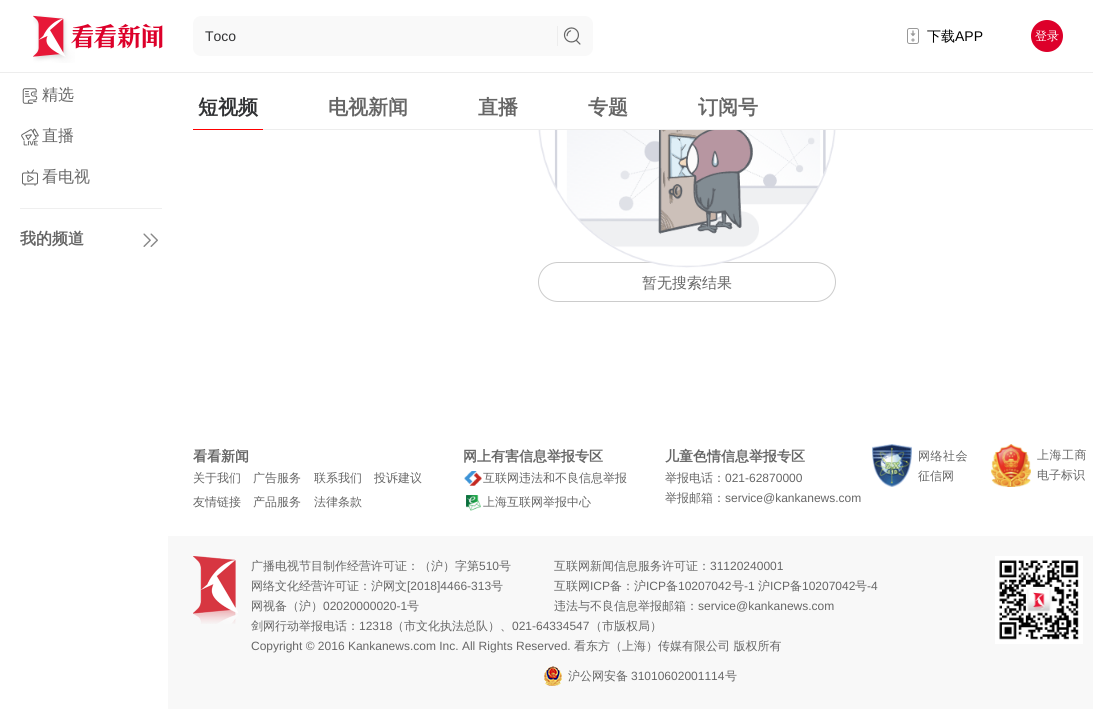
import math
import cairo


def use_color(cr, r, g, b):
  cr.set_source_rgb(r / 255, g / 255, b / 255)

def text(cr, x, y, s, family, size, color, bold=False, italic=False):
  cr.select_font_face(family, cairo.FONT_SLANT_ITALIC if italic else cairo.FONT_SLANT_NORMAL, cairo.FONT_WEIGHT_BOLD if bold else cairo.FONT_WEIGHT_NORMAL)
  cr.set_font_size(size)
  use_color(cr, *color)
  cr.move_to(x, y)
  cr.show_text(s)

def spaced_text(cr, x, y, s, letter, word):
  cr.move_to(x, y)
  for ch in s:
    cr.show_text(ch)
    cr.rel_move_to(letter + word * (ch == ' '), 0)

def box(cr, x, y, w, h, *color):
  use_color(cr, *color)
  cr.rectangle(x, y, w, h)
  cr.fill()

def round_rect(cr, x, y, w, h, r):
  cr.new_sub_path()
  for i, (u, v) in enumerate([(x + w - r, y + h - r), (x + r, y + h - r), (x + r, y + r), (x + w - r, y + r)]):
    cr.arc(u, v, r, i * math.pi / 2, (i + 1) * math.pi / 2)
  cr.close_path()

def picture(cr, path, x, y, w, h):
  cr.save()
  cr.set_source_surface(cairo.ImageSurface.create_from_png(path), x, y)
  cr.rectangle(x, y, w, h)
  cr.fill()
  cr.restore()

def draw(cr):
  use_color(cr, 255, 255, 255)
  cr.paint()
  box(cr, 0, 72, 1093, 1, 237, 237, 237)
  picture(cr, "img_01.png", 33, 15, 130, 48)
  use_color(cr, 249, 249, 249)
  round_rect(cr, 193, 16, 400, 40, 8)
  cr.fill()
  picture(cr, "img_02.png", 563, 27, 18, 18)
  box(cr, 557, 26, 1, 20, 237, 237, 237)
  picture(cr, "img_03.png", 907, 28, 12, 16)
  use_color(cr, 221, 0, 42)
  cr.arc(1047, 36, 16, 0, 2 * math.pi)
  cr.fill()
  box(cr, 20, 208, 142, 1, 239, 239, 239)
  picture(cr, "img_04.png", 22, 88, 16, 16)
  picture(cr, "img_05.png", 21, 128, 18, 18)
  picture(cr, "img_06.png", 22, 169, 16, 17)
  picture(cr, "img_07.png", 143, 233, 15, 14)
  box(cr, 263, 129, 830, 1, 237, 237, 237)
  box(cr, 193, 129, 70, 1, 255, 0, 0)
  round_rect(cr, 538.5, 262.5, 297, 39, 19.5)
  use_color(cr, 204, 204, 204)
  cr.set_line_width(1)
  cr.stroke()
  picture(cr, "img_08.png", 538, 130, 298, 138)
  picture(cr, "img_09.png", 464, 471, 18, 15)
  picture(cr, "img_10.png", 466, 495, 15, 16)
  picture(cr, "img_11.png", 872, 444, 40, 43)
  picture(cr, "img_12.png", 991, 444, 40, 43)
  box(cr, 168, 536, 925, 173, 248, 248, 248)
  picture(cr, "img_13.png", 193, 556, 45, 68)
  picture(cr, "img_14.png", 995, 556, 88, 88)
  picture(cr, "img_15.png", 544, 666, 18, 20)
  text(cr, 205, 41, "Toco", "Liberation Sans", 14, (49, 50, 52))
  text(cr, 927, 41, "下载", "WenQuanYi Zen Hei Medium", 14, (0, 0, 0))
  text(cr, 955, 41, "APP", "Liberation Sans", 14, (0, 0, 0))
  text(cr, 1035, 40, "登录", "WenQuanYi Zen Hei Medium", 12, (255, 255, 255))
  text(cr, 42, 100, "精选", "WenQuanYi Zen Hei Medium", 16, (102, 102, 102))
  text(cr, 42, 141, "直播", "WenQuanYi Zen Hei Medium", 16, (102, 102, 102))
  text(cr, 42, 182, "看电视", "WenQuanYi Zen Hei Medium", 16, (102, 102, 102))
  text(cr, 20, 244, "我的频道", "WenQuanYi Zen Hei", 16, (102, 102, 102), bold=True)
  text(cr, 198, 114, "短视频", "WenQuanYi Zen Hei", 20, (49, 50, 52), bold=True)
  text(cr, 328, 114, "电视新闻", "WenQuanYi Zen Hei", 20, (102, 102, 102), bold=True)
  text(cr, 478, 114, "直播", "WenQuanYi Zen Hei", 20, (102, 102, 102), bold=True)
  text(cr, 588, 114, "专题", "WenQuanYi Zen Hei", 20, (102, 102, 102), bold=True)
  text(cr, 698, 114, "订阅号", "WenQuanYi Zen Hei", 20, (102, 102, 102), bold=True)
  text(cr, 642, 288, "暂无搜索结果", "WenQuanYi Zen Hei Medium", 15, (102, 102, 102))
  text(cr, 193, 461, "看看新闻", "WenQuanYi Zen Hei", 14, (102, 102, 102), bold=True)
  text(cr, 193, 482, "关于我们", "WenQuanYi Zen Hei Medium", 12, (102, 102, 102))
  text(cr, 253, 482, "广告服务", "WenQuanYi Zen Hei Medium", 12, (102, 102, 102))
  text(cr, 314, 482, "联系我们", "WenQuanYi Zen Hei Medium", 12, (102, 102, 102))
  text(cr, 374, 482, "投诉建议", "WenQuanYi Zen Hei Medium", 12, (102, 102, 102))
  text(cr, 193, 506, "友情链接", "WenQuanYi Zen Hei Medium", 12, (102, 102, 102))
  text(cr, 253, 506, "产品服务", "WenQuanYi Zen Hei Medium", 12, (102, 102, 102))
  text(cr, 314, 506, "法律条款", "WenQuanYi Zen Hei Medium", 12, (102, 102, 102))
  text(cr, 463, 461, "网上有害信息举报专区", "WenQuanYi Zen Hei", 14, (102, 102, 102), bold=True)
  text(cr, 483, 482, "互联网违法和不良信息举报", "WenQuanYi Zen Hei Medium", 12, (102, 102, 102))
  text(cr, 483, 506, "上海互联网举报中心", "WenQuanYi Zen Hei Medium", 12, (102, 102, 102))
  text(cr, 665, 461, "儿童色情信息举报专区", "WenQuanYi Zen Hei", 14, (102, 102, 102), bold=True)
  text(cr, 665, 482, "举报电话：", "WenQuanYi Zen Hei Medium", 12, (102, 102, 102))
  text(cr, 725, 482, "021-62870000", "Liberation Sans", 12, (102, 102, 102))
  text(cr, 665, 502, "举报邮箱：", "WenQuanYi Zen Hei Medium", 12, (102, 102, 102))
  text(cr, 725, 502, "service@kankanews.com", "Liberation Sans", 12, (102, 102, 102))
  cr.select_font_face("WenQuanYi Zen Hei Medium")
  spaced_text(cr, 918, 460, "网络社会", 0.5, 0)
  text(cr, 918, 480, "征信网", "WenQuanYi Zen Hei Medium", 12, (102, 102, 102))
  spaced_text(cr, 1037, 459, "上海工商", 0.5, 0)
  text(cr, 1037, 479, "电子标识", "WenQuanYi Zen Hei Medium", 12, (102, 102, 102))
  text(cr, 251, 570, "广播电视节目制作经营许可证：（沪）字第", "WenQuanYi Zen Hei Medium", 12, (102, 102, 102))
  text(cr, 479, 570, "510", "Liberation Sans", 12, (102, 102, 102))
  text(cr, 499, 570, "号", "WenQuanYi Zen Hei Medium", 12, (102, 102, 102))
  text(cr, 554, 570, "互联网新闻信息服务许可证：", "WenQuanYi Zen Hei Medium", 12, (102, 102, 102))
  text(cr, 710, 570, "31120240001", "Liberation Sans", 12, (102, 102, 102))
  text(cr, 251, 590, "网络文化经营许可证：沪网文", "WenQuanYi Zen Hei Medium", 12, (102, 102, 102))
  text(cr, 407, 590, "[2018]4466-313", "Liberation Sans", 12, (102, 102, 102))
  text(cr, 491, 590, "号", "WenQuanYi Zen Hei Medium", 12, (102, 102, 102))
  text(cr, 554, 590, "互联网", "WenQuanYi Zen Hei Medium", 12, (102, 102, 102))
  text(cr, 590, 590, "ICP", "Liberation Sans", 12, (102, 102, 102))
  text(cr, 610, 590, "备：沪", "WenQuanYi Zen Hei Medium", 12, (102, 102, 102))
  text(cr, 646, 590, "ICP", "Liberation Sans", 12, (102, 102, 102))
  text(cr, 666, 590, "备", "WenQuanYi Zen Hei Medium", 12, (102, 102, 102))
  text(cr, 678, 590, "10207042", "Liberation Sans", 12, (102, 102, 102))
  text(cr, 732, 590, "号", "WenQuanYi Zen Hei Medium", 12, (102, 102, 102))
  text(cr, 744, 590, "-1", "Liberation Sans", 12, (102, 102, 102))
  text(cr, 758, 590, "沪", "WenQuanYi Zen Hei Medium", 12, (102, 102, 102))
  text(cr, 770, 590, "ICP", "Liberation Sans", 12, (102, 102, 102))
  text(cr, 790, 590, "备", "WenQuanYi Zen Hei Medium", 12, (102, 102, 102))
  text(cr, 802, 590, "10207042", "Liberation Sans", 12, (102, 102, 102))
  text(cr, 855, 590, "号", "WenQuanYi Zen Hei Medium", 12, (102, 102, 102))
  text(cr, 867, 590, "-4", "Liberation Sans", 12, (102, 102, 102))
  text(cr, 251, 610, "网视备（沪）", "WenQuanYi Zen Hei Medium", 12, (102, 102, 102))
  text(cr, 323, 610, "02020000020-1", "Liberation Sans", 12, (102, 102, 102))
  text(cr, 407, 610, "号", "WenQuanYi Zen Hei Medium", 12, (102, 102, 102))
  text(cr, 554, 610, "违法与不良信息举报邮箱：", "WenQuanYi Zen Hei Medium", 12, (102, 102, 102))
  text(cr, 698, 610, "service@kankanews.com", "Liberation Sans", 12, (102, 102, 102))
  text(cr, 251, 630, "剑网行动举报电话：", "WenQuanYi Zen Hei Medium", 12, (102, 102, 102))
  text(cr, 359, 630, "12318", "Liberation Sans", 12, (102, 102, 102))
  text(cr, 392, 630, "（市文化执法总队）、", "WenQuanYi Zen Hei Medium", 12, (102, 102, 102))
  text(cr, 512, 630, "021-64334547", "Liberation Sans", 12, (102, 102, 102))
  text(cr, 590, 630, "（市版权局）", "WenQuanYi Zen Hei Medium", 12, (102, 102, 102))
  text(cr, 251, 650, "Copyright © 2016 Kankanews.com Inc. All Rights Reserved.", "Liberation Sans", 12, (102, 102, 102))
  text(cr, 574, 650, "看东方（上海）传媒有限公司 版权所有", "WenQuanYi Zen Hei Medium", 12, (102, 102, 102))
  text(cr, 568, 680, "沪公网安备", "WenQuanYi Zen Hei Medium", 12, (102, 102, 102))
  text(cr, 631, 680, "31010602001114", "Liberation Sans", 12, (102, 102, 102))
  text(cr, 725, 680, "号", "WenQuanYi Zen Hei Medium", 12, (102, 102, 102))


surface = cairo.ImageSurface(cairo.FORMAT_RGB24, 1093, 709)
cr = cairo.Context(surface)
options = cairo.FontOptions()
options.set_hint_metrics(cairo.HINT_METRICS_OFF)
options.set_hint_style(cairo.HINT_STYLE_NONE)
cr.set_font_options(options)
cr.set_miter_limit(4)
draw(cr)
surface.write_to_png("out.png")
